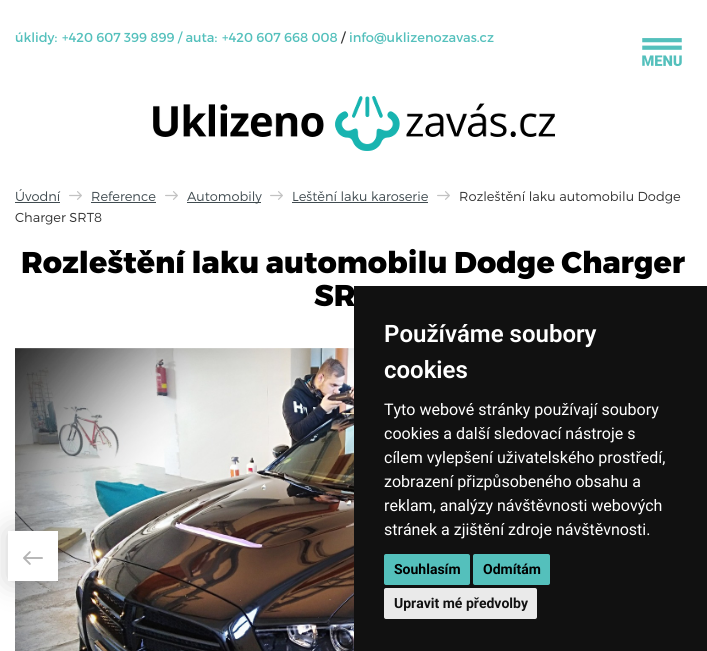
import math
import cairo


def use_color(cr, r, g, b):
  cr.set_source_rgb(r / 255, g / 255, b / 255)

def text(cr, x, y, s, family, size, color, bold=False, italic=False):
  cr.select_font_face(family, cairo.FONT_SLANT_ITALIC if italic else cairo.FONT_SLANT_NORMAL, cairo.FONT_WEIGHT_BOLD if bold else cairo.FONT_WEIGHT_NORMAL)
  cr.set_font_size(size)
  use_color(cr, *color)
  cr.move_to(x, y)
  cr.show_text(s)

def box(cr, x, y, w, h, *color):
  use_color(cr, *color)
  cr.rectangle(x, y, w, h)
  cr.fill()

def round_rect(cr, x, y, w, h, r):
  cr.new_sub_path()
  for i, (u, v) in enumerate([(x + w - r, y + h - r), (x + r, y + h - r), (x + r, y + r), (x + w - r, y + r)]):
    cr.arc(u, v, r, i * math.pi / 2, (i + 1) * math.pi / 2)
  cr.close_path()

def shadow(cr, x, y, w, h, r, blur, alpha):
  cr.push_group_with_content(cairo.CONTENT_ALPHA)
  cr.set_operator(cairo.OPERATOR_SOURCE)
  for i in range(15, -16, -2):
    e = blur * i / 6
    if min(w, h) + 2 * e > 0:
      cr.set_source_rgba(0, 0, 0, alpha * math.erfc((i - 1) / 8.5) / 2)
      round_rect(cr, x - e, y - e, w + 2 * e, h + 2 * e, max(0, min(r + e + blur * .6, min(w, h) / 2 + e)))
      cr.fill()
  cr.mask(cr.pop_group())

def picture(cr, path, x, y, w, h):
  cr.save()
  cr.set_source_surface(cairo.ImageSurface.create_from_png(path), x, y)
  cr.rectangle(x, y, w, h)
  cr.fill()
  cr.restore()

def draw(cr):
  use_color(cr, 255, 255, 255)
  cr.paint()
  picture(cr, "img_01.png", 642, 38, 40, 29)
  picture(cr, "img_02.png", 153, 96, 402, 55)
  box(cr, 15, 202, 45, 1, 64, 75, 80)
  picture(cr, "img_03.png", 69, 191, 13, 9)
  box(cr, 91, 202, 65, 1, 64, 75, 80)
  picture(cr, "img_03.png", 165, 191, 13, 9)
  box(cr, 187, 202, 74, 1, 64, 75, 80)
  picture(cr, "img_03.png", 270, 191, 13, 9)
  box(cr, 292, 202, 136, 1, 64, 75, 80)
  picture(cr, "img_03.png", 437, 191, 13, 9)
  picture(cr, "img_04.png", 15, 348, 339, 303)
  use_color(cr, 0, 1, 1)
  shadow(cr, 8, 531, 50, 50, 0, 14.5, 0.19)
  box(cr, 8, 531, 50, 50, 255, 255, 255)
  picture(cr, "img_05.png", 23, 551, 20, 14)
  text(cr, 15, 42, "úklidy:", "Montserrat", 13, (84, 192, 188))
  text(cr, 62, 42, "+420 607 399 899 / auta:", "Montserrat", 13, (84, 192, 188))
  text(cr, 222, 42, "+420 607 668 008", "Montserrat", 13, (84, 192, 188))
  text(cr, 341, 42, "/", "Montserrat", 13, (51, 51, 51))
  text(cr, 349, 42, "info@uklizenozavas.cz", "Montserrat", 13, (84, 192, 188))
  text(cr, 15, 201, "Úvodní", "Montserrat Light", 13, (64, 75, 80))
  text(cr, 91, 201, "Reference", "Montserrat Light", 13, (64, 75, 80))
  text(cr, 187, 201, "Automobily", "Montserrat Light", 13, (64, 75, 80))
  text(cr, 292, 201, "Leštění laku karoserie", "Montserrat Light", 13, (64, 75, 80))
  text(cr, 459, 201, "Rozleštění laku automobilu Dodge", "Montserrat Light", 13, (51, 51, 51))
  text(cr, 15, 222, "Charger SRT8", "Montserrat Light", 13, (51, 51, 51))
  text(cr, 21, 273, "Rozleštění laku automobilu Dodge Charger", "Montserrat ExtraBold", 30, (0, 0, 0))
  text(cr, 314, 306, "SR", "Montserrat ExtraBold", 30, (0, 0, 0))
  box(cr, 354, 286, 353, 365, 17, 17, 17)
  text(cr, 384, 342, "Používáme soubory", "Roboto SemiBold", 24, (255, 255, 255))
  text(cr, 384, 378, "cookies", "Roboto SemiBold", 24, (255, 255, 255))
  text(cr, 384, 415, "Tyto webové stránky používají soubory", "Roboto", 16, (255, 255, 255))
  text(cr, 384, 439, "cookies a další sledovací nástroje s", "Roboto", 16, (255, 255, 255))
  text(cr, 384, 463, "cílem vylepšení uživatelského prostředí,", "Roboto", 16, (255, 255, 255))
  text(cr, 384, 487, "zobrazení přizpůsobeného obsahu a", "Roboto", 16, (255, 255, 255))
  text(cr, 384, 511, "reklam, analýzy návštěvnosti webových", "Roboto", 16, (255, 255, 255))
  text(cr, 384, 535, "stránek a zjištění zdroje návštěvnosti.", "Roboto", 16, (255, 255, 255))
  use_color(cr, 84, 192, 188)
  round_rect(cr, 384, 554, 86, 31, 2)
  cr.fill()
  text(cr, 394, 574, "Souhlasím", "Roboto", 14, (0, 0, 0), bold=True)
  use_color(cr, 84, 192, 188)
  round_rect(cr, 473, 554, 77, 31, 2)
  cr.fill()
  text(cr, 483, 574, "Odmítám", "Roboto", 14, (0, 0, 0), bold=True)
  use_color(cr, 234, 234, 234)
  round_rect(cr, 384, 588, 153, 31, 2)
  cr.fill()
  text(cr, 394, 608, "Upravit mé předvolby", "Roboto", 14, (17, 17, 17), bold=True)


surface = cairo.ImageSurface(cairo.FORMAT_RGB24, 707, 651)
cr = cairo.Context(surface)
options = cairo.FontOptions()
options.set_hint_metrics(cairo.HINT_METRICS_OFF)
options.set_hint_style(cairo.HINT_STYLE_NONE)
cr.set_font_options(options)
cr.set_miter_limit(4)
draw(cr)
surface.write_to_png("out.png")
